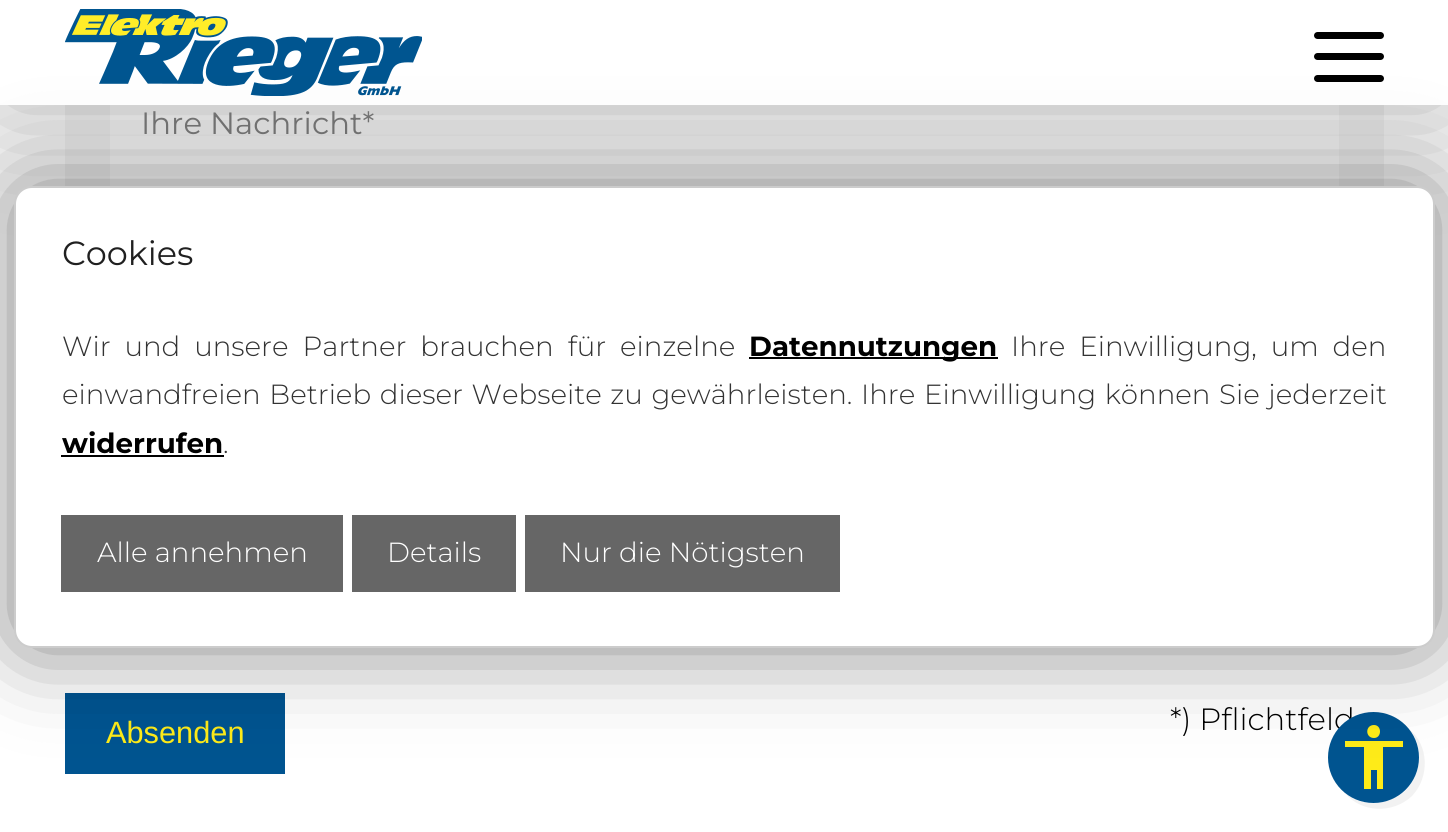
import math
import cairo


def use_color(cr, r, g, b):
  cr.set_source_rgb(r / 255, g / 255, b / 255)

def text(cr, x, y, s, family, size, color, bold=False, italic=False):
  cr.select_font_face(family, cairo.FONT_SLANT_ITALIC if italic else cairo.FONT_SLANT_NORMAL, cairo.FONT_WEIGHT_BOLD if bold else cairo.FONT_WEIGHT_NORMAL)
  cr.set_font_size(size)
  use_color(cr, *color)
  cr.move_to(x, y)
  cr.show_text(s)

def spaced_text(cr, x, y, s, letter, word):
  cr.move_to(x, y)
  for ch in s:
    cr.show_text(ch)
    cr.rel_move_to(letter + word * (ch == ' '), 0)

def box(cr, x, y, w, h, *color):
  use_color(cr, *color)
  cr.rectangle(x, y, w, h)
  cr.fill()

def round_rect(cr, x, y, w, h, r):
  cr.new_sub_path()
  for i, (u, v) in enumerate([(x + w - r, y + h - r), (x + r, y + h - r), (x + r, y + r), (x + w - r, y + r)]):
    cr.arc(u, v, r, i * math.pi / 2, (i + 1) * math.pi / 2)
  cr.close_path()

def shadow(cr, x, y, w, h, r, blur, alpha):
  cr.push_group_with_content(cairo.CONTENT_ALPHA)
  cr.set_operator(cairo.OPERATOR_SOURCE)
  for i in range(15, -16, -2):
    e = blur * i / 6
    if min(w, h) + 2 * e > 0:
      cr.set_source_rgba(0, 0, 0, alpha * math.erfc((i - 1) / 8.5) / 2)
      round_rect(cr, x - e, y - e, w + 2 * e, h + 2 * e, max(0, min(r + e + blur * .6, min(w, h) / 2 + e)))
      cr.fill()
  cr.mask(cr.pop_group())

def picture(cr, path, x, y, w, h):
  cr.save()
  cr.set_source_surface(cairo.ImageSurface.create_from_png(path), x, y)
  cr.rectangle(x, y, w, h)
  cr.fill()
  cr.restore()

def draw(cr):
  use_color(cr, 255, 255, 255)
  cr.paint()
  box(cr, 65, 105, 1319, 81, 245, 245, 245)
  box(cr, 110, 105, 1229, 81, 253, 253, 253)
  use_color(cr, 0, 0, 0)
  shadow(cr, 0, 0, 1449, 105, 0, 61, 0.3)
  box(cr, 0, 0, 1448, 105, 255, 255, 255)
  picture(cr, "img_01.png", 65, 9, 357, 87)
  use_color(cr, 0, 0, 0)
  round_rect(cr, 1314, 32, 70, 7, 3.5)
  cr.fill()
  round_rect(cr, 1314, 53, 70, 7, 3.5)
  cr.fill()
  round_rect(cr, 1314, 75, 70, 7, 3.5)
  cr.fill()
  box(cr, 65, 693, 220, 81, 0, 84, 144)
  text(cr, 141, 134, "Ihre Nachricht*", "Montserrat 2 Thin", 30.75, (117, 117, 117))
  text(cr, 106, 743, "Absenden", "Liberation Sans", 30.75, (254, 235, 24))
  text(cr, 1170, 730, "*) Pflichtfeld", "Montserrat Thin", 30.75, (0, 0, 0))
  use_color(cr, 242, 242, 242)
  cr.new_path()
  cr.move_to(1345, 793)
  cr.curve_to(1361, 813, 1393, 814, 1412, 796)
  cr.curve_to(1430, 777, 1429, 745, 1409, 729)
  cr.curve_to(1424, 746, 1422, 773, 1406, 790)
  cr.curve_to(1389, 806, 1362, 808, 1345, 793)
  cr.close_path()
  cr.fill()
  use_color(cr, 0, 84, 144)
  cr.arc(1373.5, 757.5, 45.5, 0, 2 * math.pi)
  cr.fill()
  use_color(cr, 254, 235, 24)
  cr.new_path()
  cr.move_to(1403, 747)
  cr.line_to(1383, 747)
  cr.line_to(1383, 789)
  cr.line_to(1377, 789)
  cr.line_to(1377, 770)
  cr.line_to(1371, 770)
  cr.line_to(1371, 789)
  cr.line_to(1364, 789)
  cr.line_to(1364, 747)
  cr.line_to(1345, 747)
  cr.line_to(1345, 741)
  cr.line_to(1403, 741)
  cr.close_path()
  cr.move_to(1374, 725)
  cr.curve_to(1382, 725, 1382, 738, 1374, 738)
  cr.curve_to(1365, 738, 1365, 725, 1374, 725)
  cr.close_path()
  cr.fill()
  use_color(cr, 0, 0, 0)
  shadow(cr, 14, 186, 1421, 462, 18, 44, 0.5)
  use_color(cr, 255, 255, 255)
  round_rect(cr, 15, 187, 1419, 460, 17)
  cr.fill_preserve()
  use_color(cr, 204, 204, 204)
  cr.stroke()
  text(cr, 62, 265, "Cookies", "Montserrat 2 Thin", 33.5, (32, 32, 32))
  box(cr, 525, 515, 315, 77, 102, 102, 102)
  text(cr, 560, 562, "Nur die Nötigsten", "Montserrat Thin", 27.7, (255, 255, 255))
  box(cr, 352, 515, 164, 77, 102, 102, 102)
  text(cr, 387, 562, "Details", "Montserrat Thin", 27.7, (255, 255, 255))
  box(cr, 61, 515, 282, 77, 102, 102, 102)
  text(cr, 97, 562, "Alle annehmen", "Montserrat Thin", 27.7, (255, 255, 255))
  text(cr, 223, 453, ".", "Montserrat Thin", 27.7, (51, 51, 51))
  text(cr, 62, 453, "widerrufen", "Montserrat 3 Thin", 27.7, (0, 0, 0))
  box(cr, 61, 455, 163, 2, 0, 0, 0)
  cr.select_font_face("Montserrat Thin")
  use_color(cr, 51, 51, 51)
  spaced_text(cr, 62, 404, "einwandfreien Betrieb dieser Webseite zu gewährleisten. Ihre Einwilligung können Sie jederzeit", 0, 1.5)
  spaced_text(cr, 1011, 356, "Ihre Einwilligung, um den", 0, 6.75)
  box(cr, 749, 357, 249, 2, 0, 0, 0)
  text(cr, 749, 356, "Datennutzungen", "Montserrat 3 Thin", 27.7, (0, 0, 0))
  cr.select_font_face("Montserrat Thin")
  use_color(cr, 51, 51, 51)
  spaced_text(cr, 62, 356, "Wir und unsere Partner brauchen für einzelne", 0, 6.75)


surface = cairo.ImageSurface(cairo.FORMAT_RGB24, 1448, 832)
cr = cairo.Context(surface)
options = cairo.FontOptions()
options.set_hint_metrics(cairo.HINT_METRICS_OFF)
options.set_hint_style(cairo.HINT_STYLE_NONE)
cr.set_font_options(options)
cr.set_miter_limit(4)
draw(cr)
surface.write_to_png("out.png")
